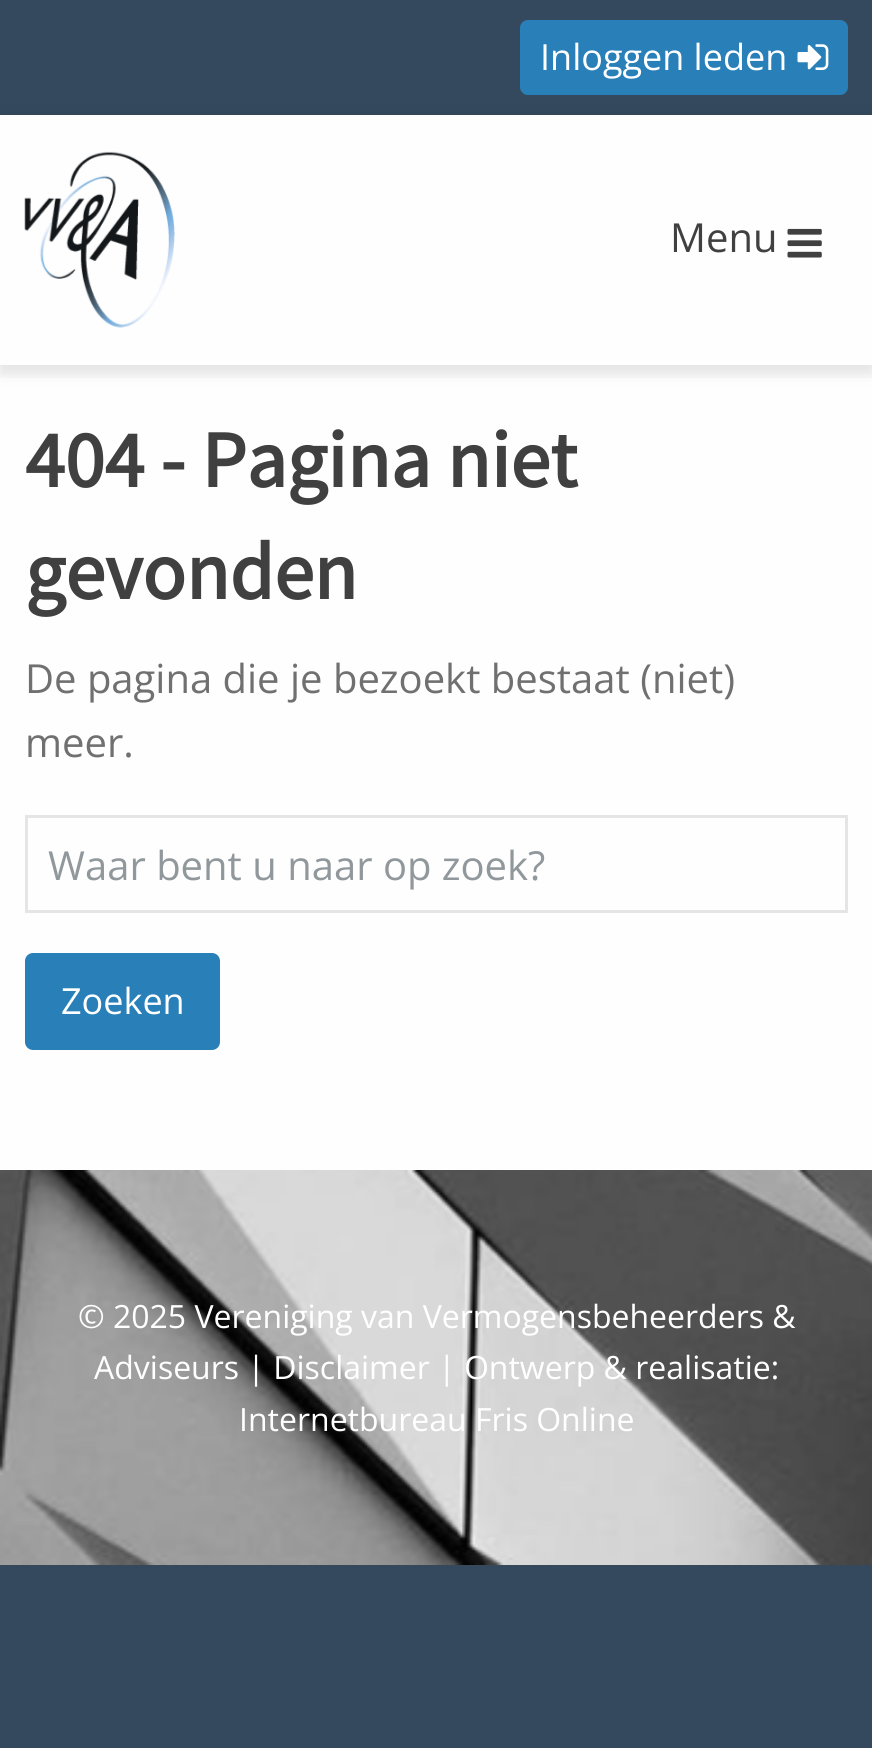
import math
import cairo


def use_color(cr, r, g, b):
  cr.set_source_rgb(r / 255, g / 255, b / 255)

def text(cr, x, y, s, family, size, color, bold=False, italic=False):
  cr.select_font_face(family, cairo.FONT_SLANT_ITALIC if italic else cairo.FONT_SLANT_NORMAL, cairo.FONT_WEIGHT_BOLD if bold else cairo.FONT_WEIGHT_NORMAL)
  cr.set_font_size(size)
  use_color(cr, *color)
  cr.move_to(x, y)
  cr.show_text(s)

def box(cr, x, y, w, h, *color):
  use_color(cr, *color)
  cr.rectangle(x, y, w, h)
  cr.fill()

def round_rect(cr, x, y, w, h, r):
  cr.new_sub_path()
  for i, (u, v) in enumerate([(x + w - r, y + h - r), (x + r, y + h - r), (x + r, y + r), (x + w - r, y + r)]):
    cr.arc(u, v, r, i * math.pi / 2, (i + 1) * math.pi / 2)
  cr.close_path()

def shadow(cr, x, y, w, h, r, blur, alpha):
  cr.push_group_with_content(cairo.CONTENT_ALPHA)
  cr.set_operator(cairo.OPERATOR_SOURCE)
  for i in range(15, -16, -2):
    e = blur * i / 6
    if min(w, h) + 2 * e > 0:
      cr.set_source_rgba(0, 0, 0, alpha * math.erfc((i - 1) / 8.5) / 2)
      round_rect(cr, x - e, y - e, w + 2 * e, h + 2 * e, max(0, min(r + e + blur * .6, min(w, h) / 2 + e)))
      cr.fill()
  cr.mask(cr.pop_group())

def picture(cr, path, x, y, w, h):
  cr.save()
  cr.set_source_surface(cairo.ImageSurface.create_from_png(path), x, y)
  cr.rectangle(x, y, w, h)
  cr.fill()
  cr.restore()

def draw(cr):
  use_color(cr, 52, 73, 94)
  cr.paint()
  box(cr, 0, 115, 872, 1055, 254, 254, 254)
  cr.save()
  cr.set_fill_rule(cairo.FILL_RULE_EVEN_ODD)
  cr.new_path()
  cr.move_to(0, 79)
  cr.line_to(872, 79)
  cr.line_to(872, 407)
  cr.line_to(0, 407)
  cr.close_path()
  cr.move_to(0, 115)
  cr.line_to(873, 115)
  cr.line_to(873, 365)
  cr.line_to(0, 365)
  cr.close_path()
  cr.clip()
  use_color(cr, 0, 0, 0)
  shadow(cr, 0, 118, 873, 250, 0, 12.5, 0.08)
  cr.restore()
  use_color(cr, 41, 128, 185)
  round_rect(cr, 520, 20, 328, 75, 8)
  cr.fill()
  picture(cr, "img_01.png", 797, 44, 32, 26)
  cr.save()
  cr.rectangle(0, 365, 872, 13)
  cr.clip()
  use_color(cr, 0, 0, 0)
  shadow(cr, 0, 125, 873, 250, 0, 6, 0.06)
  cr.restore()
  picture(cr, "img_02.png", 24, 151, 151, 177)
  picture(cr, "img_03.png", 787, 228, 35, 30)
  cr.rectangle(26.5, 816.5, 820, 95)
  use_color(cr, 229, 229, 229)
  cr.set_line_width(3)
  cr.stroke()
  use_color(cr, 41, 128, 185)
  round_rect(cr, 25, 953, 195, 97, 8)
  cr.fill()
  picture(cr, "img_04.png", 0, 1170, 872, 395)
  text(cr, 540, 70, "Inloggen leden", "Open Sans", 36, (255, 255, 255))
  text(cr, 670, 252, "Menu", "Open Sans", 40, (64, 64, 64))
  text(cr, 25, 487, "404 - Pagina niet", "Source Sans Pro", 80, (64, 64, 64), bold=True)
  text(cr, 25, 599, "gevonden", "Source Sans Pro", 80, (64, 64, 64), bold=True)
  text(cr, 25, 693, "De pagina die je bezoekt bestaat (niet)", "Open Sans", 40, (112, 112, 112))
  text(cr, 25, 757, "meer.", "Open Sans", 40, (112, 112, 112))
  text(cr, 48, 880, "Waar bent u naar op zoek?", "Open Sans", 40, (145, 152, 156))
  text(cr, 61, 1014, "Zoeken", "Open Sans", 36, (255, 255, 255))
  text(cr, 78, 1328, "© 2025 Vereniging van Vermogensbeheerders &", "Open Sans", 32, (255, 255, 255))
  text(cr, 94, 1379, "Adviseurs | Disclaimer | Ontwerp & realisatie:", "Open Sans", 32, (255, 255, 255))
  text(cr, 239, 1431, "Internetbureau Fris Online", "Open Sans", 32, (255, 255, 255))


surface = cairo.ImageSurface(cairo.FORMAT_RGB24, 872, 1748)
cr = cairo.Context(surface)
options = cairo.FontOptions()
options.set_hint_metrics(cairo.HINT_METRICS_OFF)
options.set_hint_style(cairo.HINT_STYLE_NONE)
cr.set_font_options(options)
cr.set_miter_limit(4)
draw(cr)
surface.write_to_png("out.png")
